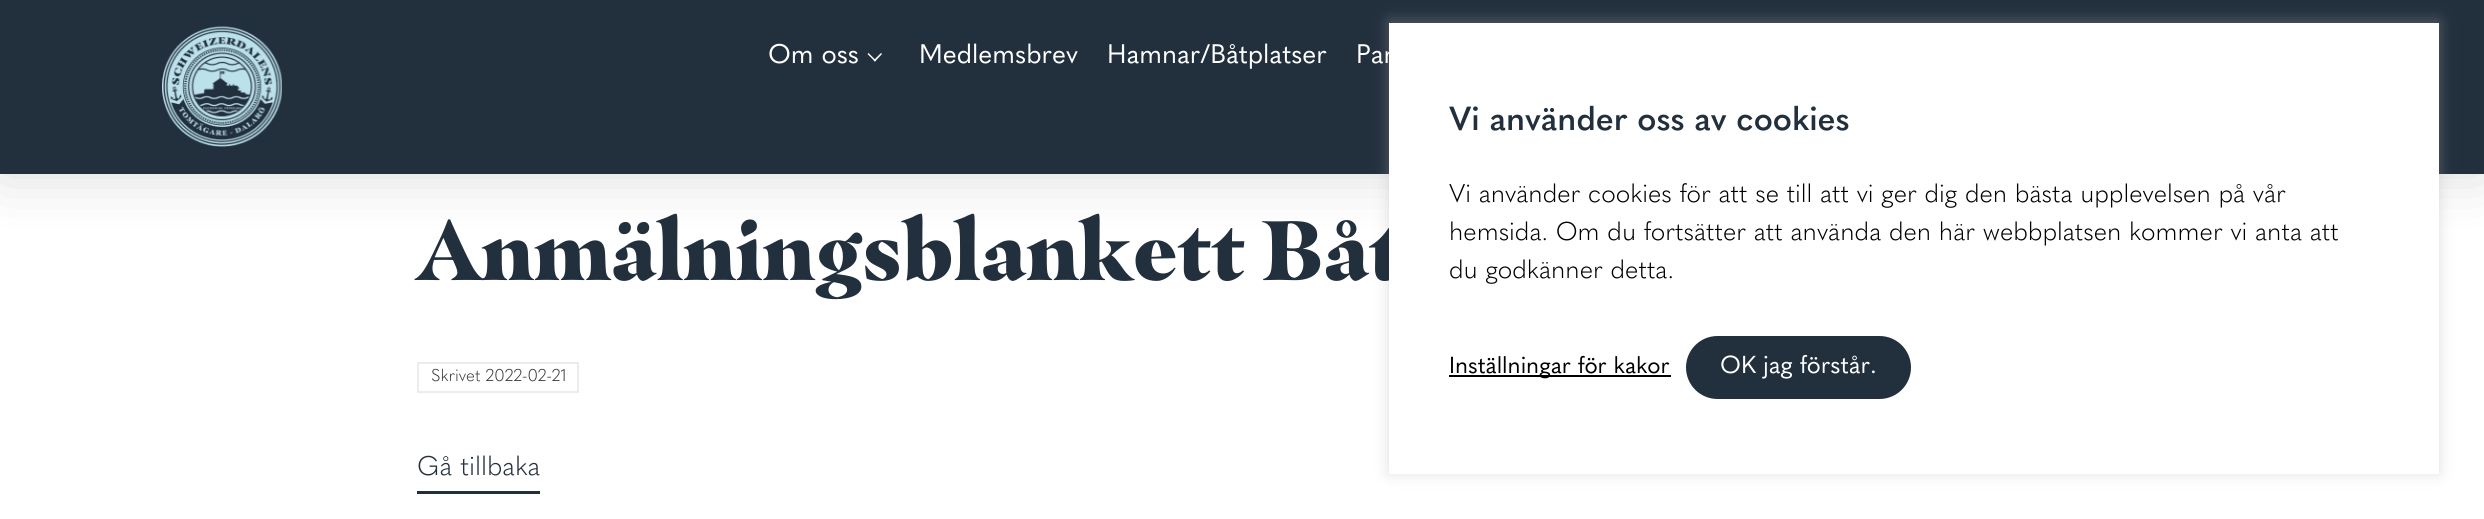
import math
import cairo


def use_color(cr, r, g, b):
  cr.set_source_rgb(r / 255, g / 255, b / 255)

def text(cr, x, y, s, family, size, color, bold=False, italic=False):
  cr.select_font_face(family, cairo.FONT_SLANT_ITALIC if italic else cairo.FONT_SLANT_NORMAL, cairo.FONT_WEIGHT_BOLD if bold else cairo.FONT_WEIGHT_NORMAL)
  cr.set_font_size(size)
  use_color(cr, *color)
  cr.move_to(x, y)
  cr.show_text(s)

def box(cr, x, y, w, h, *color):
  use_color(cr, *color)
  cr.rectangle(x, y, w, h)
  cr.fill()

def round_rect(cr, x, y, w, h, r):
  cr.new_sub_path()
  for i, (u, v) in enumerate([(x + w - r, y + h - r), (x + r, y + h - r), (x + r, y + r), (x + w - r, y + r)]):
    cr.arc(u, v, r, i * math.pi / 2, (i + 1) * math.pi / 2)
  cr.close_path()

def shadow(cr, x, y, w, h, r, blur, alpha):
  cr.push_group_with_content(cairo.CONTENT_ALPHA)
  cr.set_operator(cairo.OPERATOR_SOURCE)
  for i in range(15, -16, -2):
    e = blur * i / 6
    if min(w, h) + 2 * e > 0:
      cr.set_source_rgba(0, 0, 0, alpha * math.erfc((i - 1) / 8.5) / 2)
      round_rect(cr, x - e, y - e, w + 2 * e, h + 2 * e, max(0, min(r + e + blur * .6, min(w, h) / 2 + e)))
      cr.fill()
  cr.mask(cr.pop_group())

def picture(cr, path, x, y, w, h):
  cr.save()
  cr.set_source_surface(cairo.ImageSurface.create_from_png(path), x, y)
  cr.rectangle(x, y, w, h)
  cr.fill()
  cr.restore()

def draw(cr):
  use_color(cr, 255, 255, 255)
  cr.paint()
  use_color(cr, 0, 0, 0)
  shadow(cr, 0, 0, 2484, 174, 0, 30, 0.15)
  box(cr, 0, 0, 2484, 174, 34, 47, 61)
  picture(cr, "img_01.png", 162, 26, 120, 121)
  use_color(cr, 255, 255, 255)
  cr.new_path()
  cr.move_to(873.5, 60.5)
  cr.line_to(881, 53)
  cr.line_to(882, 54)
  cr.line_to(875, 61.5)
  cr.close_path()
  cr.fill()
  cr.new_path()
  cr.move_to(867.5, 54)
  cr.line_to(868.5, 53)
  cr.line_to(876, 60.5)
  cr.line_to(875, 61.5)
  cr.close_path()
  cr.fill()
  cr.rectangle(418, 363, 160, 29)
  use_color(cr, 237, 236, 233)
  cr.stroke()
  box(cr, 417, 491, 123, 3, 34, 47, 61)
  use_color(cr, 172, 171, 171)
  shadow(cr, 1389, 21, 1050, 452, 0, 7.5, 0.4)
  text(cr, 768, 63, "Om oss", "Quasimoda", 26.5, (255, 255, 255))
  text(cr, 919, 63, "Medlemsbrev", "Quasimoda", 26.5, (255, 255, 255))
  text(cr, 1107, 63, "Hamnar/Båtplatser", "Quasimoda", 26.5, (255, 255, 255))
  text(cr, 1356, 63, "Par", "Quasimoda", 26.5, (255, 255, 255))
  text(cr, 417, 280, "Anmälningsblankett Båt", "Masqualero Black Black", 84, (34, 47, 61))
  text(cr, 431, 381, "Skrivet 2022-02-21", "Quasimoda Light", 16.75, (56, 56, 56))
  text(cr, 417, 475, "Gå tillbaka", "Quasimoda Light", 26.5, (34, 47, 61))
  box(cr, 1389, 23, 1050, 451, 255, 255, 255)
  text(cr, 1449, 130, "Vi använder oss av cookies", "Quasimoda SemiBold", 33, (34, 47, 61))
  text(cr, 1449, 202, "Vi använder cookies för att se till att vi ger dig den bästa upplevelsen på vår", "Quasimoda Light", 25.3, (0, 0, 0))
  text(cr, 1449, 240, "hemsida. Om du fortsätter att använda den här webbplatsen kommer vi anta att", "Quasimoda Light", 25.3, (0, 0, 0))
  text(cr, 1449, 278, "du godkänner detta.", "Quasimoda Light", 25.3, (0, 0, 0))
  box(cr, 1449, 375, 222, 2, 0, 0, 0)
  text(cr, 1449, 373, "Inställningar för kakor", "Quasimoda", 23, (0, 0, 0))
  use_color(cr, 34, 47, 61)
  round_rect(cr, 1686, 336, 225, 63, 31.5)
  cr.fill()
  text(cr, 1720, 373, "OK jag förstår.", "Quasimoda", 24.25, (255, 255, 255))


surface = cairo.ImageSurface(cairo.FORMAT_RGB24, 2484, 519)
cr = cairo.Context(surface)
options = cairo.FontOptions()
options.set_hint_metrics(cairo.HINT_METRICS_OFF)
options.set_hint_style(cairo.HINT_STYLE_NONE)
cr.set_font_options(options)
cr.set_miter_limit(4)
draw(cr)
surface.write_to_png("out.png")
